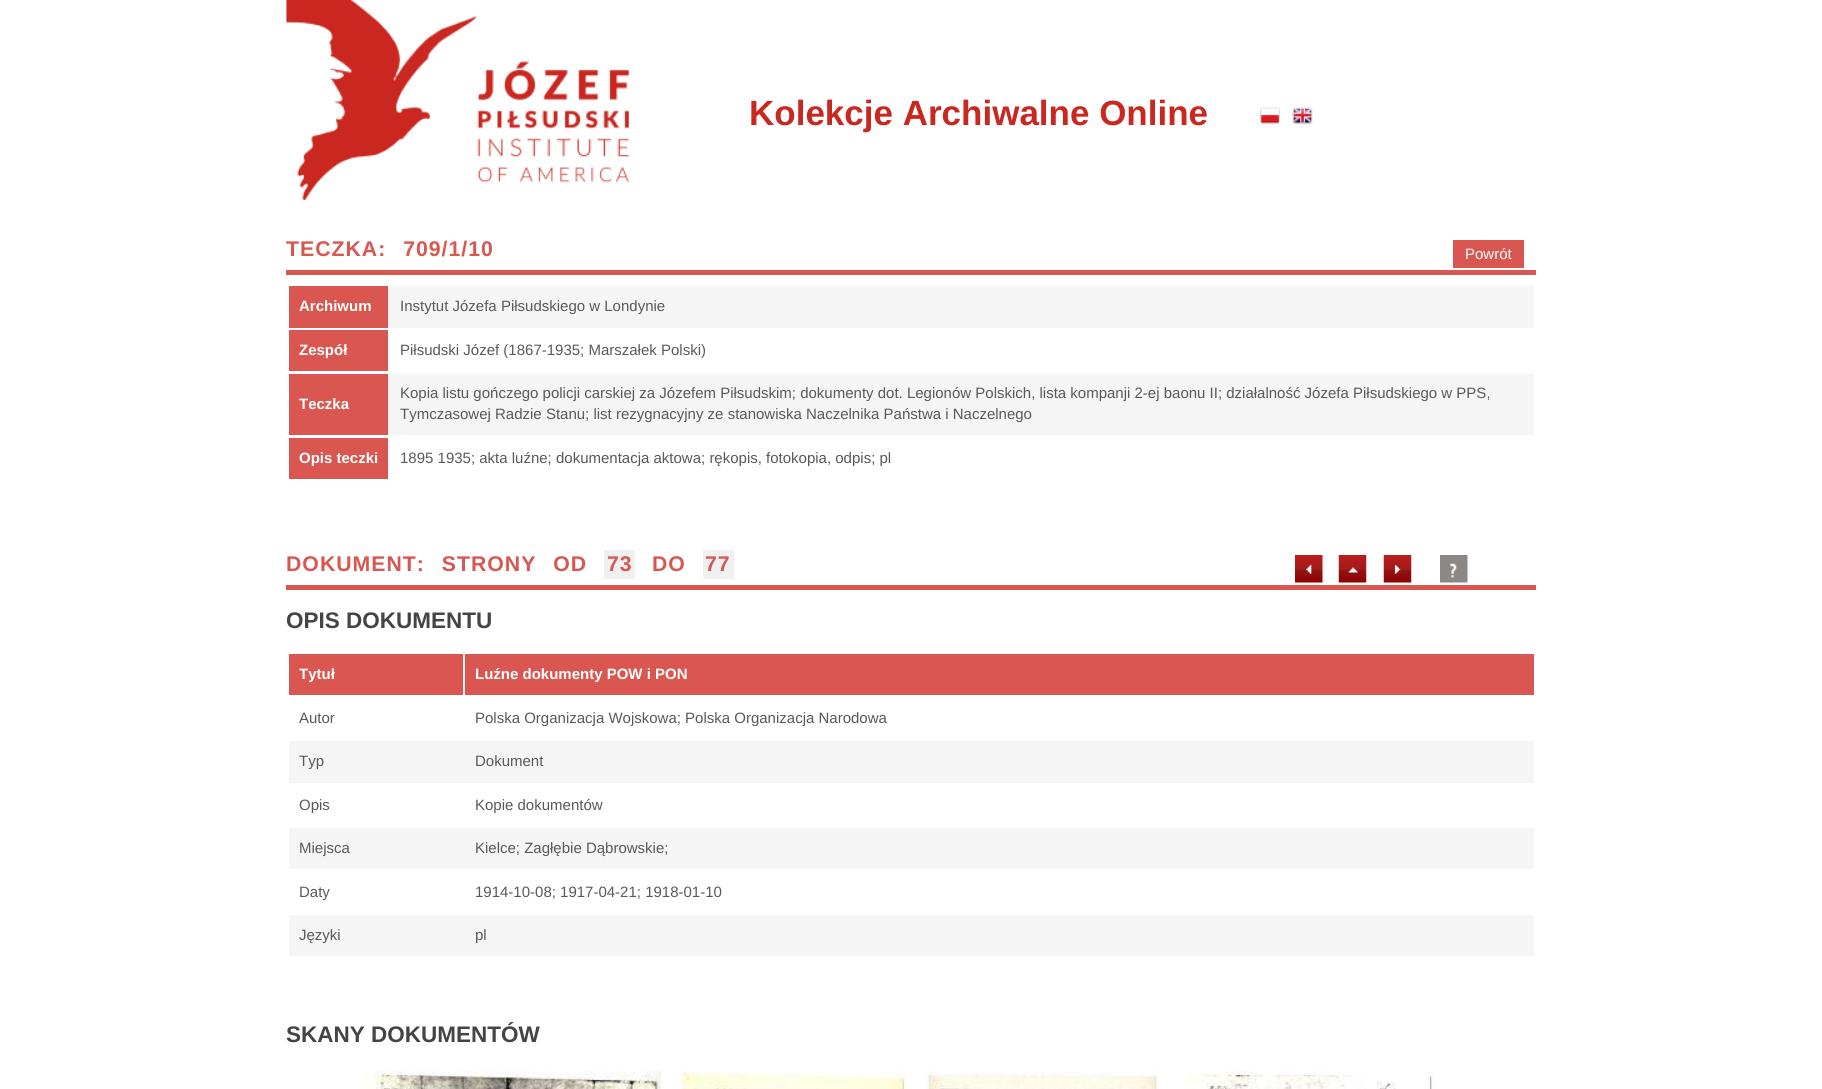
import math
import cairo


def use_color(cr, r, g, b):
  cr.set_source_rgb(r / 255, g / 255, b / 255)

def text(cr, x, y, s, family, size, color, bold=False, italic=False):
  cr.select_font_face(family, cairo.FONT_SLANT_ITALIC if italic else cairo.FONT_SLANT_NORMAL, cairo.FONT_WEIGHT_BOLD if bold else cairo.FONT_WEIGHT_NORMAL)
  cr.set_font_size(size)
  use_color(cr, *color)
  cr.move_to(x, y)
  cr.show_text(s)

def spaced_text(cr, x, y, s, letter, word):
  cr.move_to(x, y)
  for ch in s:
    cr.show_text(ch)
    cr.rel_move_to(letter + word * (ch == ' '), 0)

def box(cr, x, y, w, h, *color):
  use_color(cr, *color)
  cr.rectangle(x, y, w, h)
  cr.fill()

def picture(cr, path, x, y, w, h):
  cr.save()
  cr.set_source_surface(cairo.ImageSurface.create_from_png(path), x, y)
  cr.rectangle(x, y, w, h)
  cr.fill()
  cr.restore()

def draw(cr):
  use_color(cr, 255, 255, 255)
  cr.paint()
  picture(cr, "img_01.png", 286, 0, 343, 200)
  picture(cr, "img_02.png", 1260, 107, 20, 18)
  picture(cr, "img_03.png", 1292, 107, 21, 18)
  box(cr, 1453, 240, 71, 28, 217, 87, 80)
  box(cr, 286, 270, 1250, 5, 217, 87, 80)
  box(cr, 388, 286, 1146, 42, 245, 245, 245)
  box(cr, 289, 286, 99, 42, 217, 87, 80)
  box(cr, 289, 330, 99, 41, 217, 87, 80)
  box(cr, 388, 374, 1146, 61, 245, 245, 245)
  box(cr, 289, 374, 99, 61, 217, 87, 80)
  box(cr, 289, 438, 99, 41, 217, 87, 80)
  box(cr, 604, 550, 31, 29, 240, 240, 240)
  box(cr, 703, 550, 31, 29, 240, 240, 240)
  picture(cr, "img_04.png", 1295, 555, 28, 28)
  picture(cr, "img_05.png", 1338, 555, 29, 28)
  picture(cr, "img_06.png", 1383, 555, 29, 28)
  picture(cr, "img_07.png", 1440, 555, 28, 28)
  box(cr, 286, 585, 1250, 5, 217, 87, 80)
  box(cr, 463, 654, 2, 41, 245, 245, 245)
  box(cr, 289, 654, 174, 41, 217, 87, 80)
  box(cr, 465, 654, 1069, 41, 217, 87, 80)
  box(cr, 289, 741, 1245, 42, 245, 245, 245)
  box(cr, 289, 828, 1245, 41, 245, 245, 245)
  box(cr, 289, 915, 1245, 41, 245, 245, 245)
  picture(cr, "img_08.png", 361, 1071, 301, 18)
  picture(cr, "img_09.png", 679, 1071, 228, 18)
  picture(cr, "img_10.png", 924, 1071, 235, 18)
  picture(cr, "img_11.png", 1183, 1071, 252, 18)
  text(cr, 749, 125, "Kolekcje Archiwalne Online", "Liberation Sans", 35, (201, 39, 32), bold=True)
  cr.set_font_size(21.25)
  use_color(cr, 217, 87, 80)
  spaced_text(cr, 286, 256, "TECZKA: 709/1/10", 1, 10)
  text(cr, 1465, 259, "Powrót", "Liberation Sans", 15, (255, 255, 255))
  text(cr, 299, 311, "Archiwum", "Liberation Sans", 15, (255, 255, 255), bold=True)
  text(cr, 400, 311, "Instytut Józefa Piłsudskiego w Londynie", "Liberation Sans", 15, (89, 89, 89))
  text(cr, 299, 355, "Zespół", "Liberation Sans", 15, (255, 255, 255), bold=True)
  text(cr, 400, 355, "Piłsudski Józef (1867-1935; Marszałek Polski)", "Liberation Sans", 15, (89, 89, 89))
  text(cr, 299, 409, "Teczka", "Liberation Sans", 15, (255, 255, 255), bold=True)
  text(cr, 400, 398, "Kopia listu gończego policji carskiej za Józefem Piłsudskim; dokumenty dot. Legionów Polskich, lista kompanji 2-ej baonu II; działalność Józefa Piłsudskiego w PPS,", "Liberation Sans", 15, (89, 89, 89))
  text(cr, 400, 419, "Tymczasowej Radzie Stanu; list rezygnacyjny ze stanowiska Naczelnika Państwa i Naczelnego", "Liberation Sans", 15, (89, 89, 89))
  text(cr, 299, 463, "Opis teczki", "Liberation Sans", 15, (255, 255, 255), bold=True)
  text(cr, 400, 463, "1895 1935; akta luźne; dokumentacja aktowa; rękopis, fotokopia, odpis; pl", "Liberation Sans", 15, (89, 89, 89))
  cr.select_font_face("Liberation Sans", cairo.FONT_SLANT_NORMAL, cairo.FONT_WEIGHT_BOLD)
  cr.set_font_size(21.25)
  use_color(cr, 217, 87, 80)
  spaced_text(cr, 286, 571, "DOKUMENT: STRONY OD", 1, 10)
  spaced_text(cr, 607, 571, "73", 1, 0)
  spaced_text(cr, 652, 571, "DO", 1, 0)
  spaced_text(cr, 705, 571, "77", 1, 0)
  text(cr, 286, 628, "OPIS DOKUMENTU", "Liberation Sans", 22.5, (68, 68, 68), bold=True)
  text(cr, 299, 679, "Tytuł", "Liberation Sans", 15, (255, 255, 255), bold=True)
  text(cr, 475, 679, "Luźne dokumenty POW i PON", "Liberation Sans", 15, (255, 255, 255), bold=True)
  text(cr, 299, 723, "Autor", "Liberation Sans", 15, (89, 89, 89))
  text(cr, 475, 723, "Polska Organizacja Wojskowa; Polska Organizacja Narodowa", "Liberation Sans", 15, (89, 89, 89))
  text(cr, 299, 766, "Typ", "Liberation Sans", 15, (89, 89, 89))
  text(cr, 475, 766, "Dokument", "Liberation Sans", 15, (89, 89, 89))
  text(cr, 299, 810, "Opis", "Liberation Sans", 15, (89, 89, 89))
  text(cr, 475, 810, "Kopie dokumentów", "Liberation Sans", 15, (89, 89, 89))
  text(cr, 299, 853, "Miejsca", "Liberation Sans", 15, (89, 89, 89))
  text(cr, 475, 853, "Kielce; Zagłębie Dąbrowskie;", "Liberation Sans", 15, (89, 89, 89))
  text(cr, 299, 897, "Daty", "Liberation Sans", 15, (89, 89, 89))
  text(cr, 475, 897, "1914-10-08; 1917-04-21; 1918-01-10", "Liberation Sans", 15, (89, 89, 89))
  text(cr, 299, 940, "Języki", "Liberation Sans", 15, (89, 89, 89))
  text(cr, 475, 940, "pl", "Liberation Sans", 15, (89, 89, 89))
  text(cr, 286, 1042, "SKANY DOKUMENTÓW", "Liberation Sans", 22.5, (68, 68, 68), bold=True)


surface = cairo.ImageSurface(cairo.FORMAT_RGB24, 1822, 1089)
cr = cairo.Context(surface)
options = cairo.FontOptions()
options.set_hint_metrics(cairo.HINT_METRICS_OFF)
options.set_hint_style(cairo.HINT_STYLE_NONE)
cr.set_font_options(options)
cr.set_miter_limit(4)
draw(cr)
surface.write_to_png("out.png")
